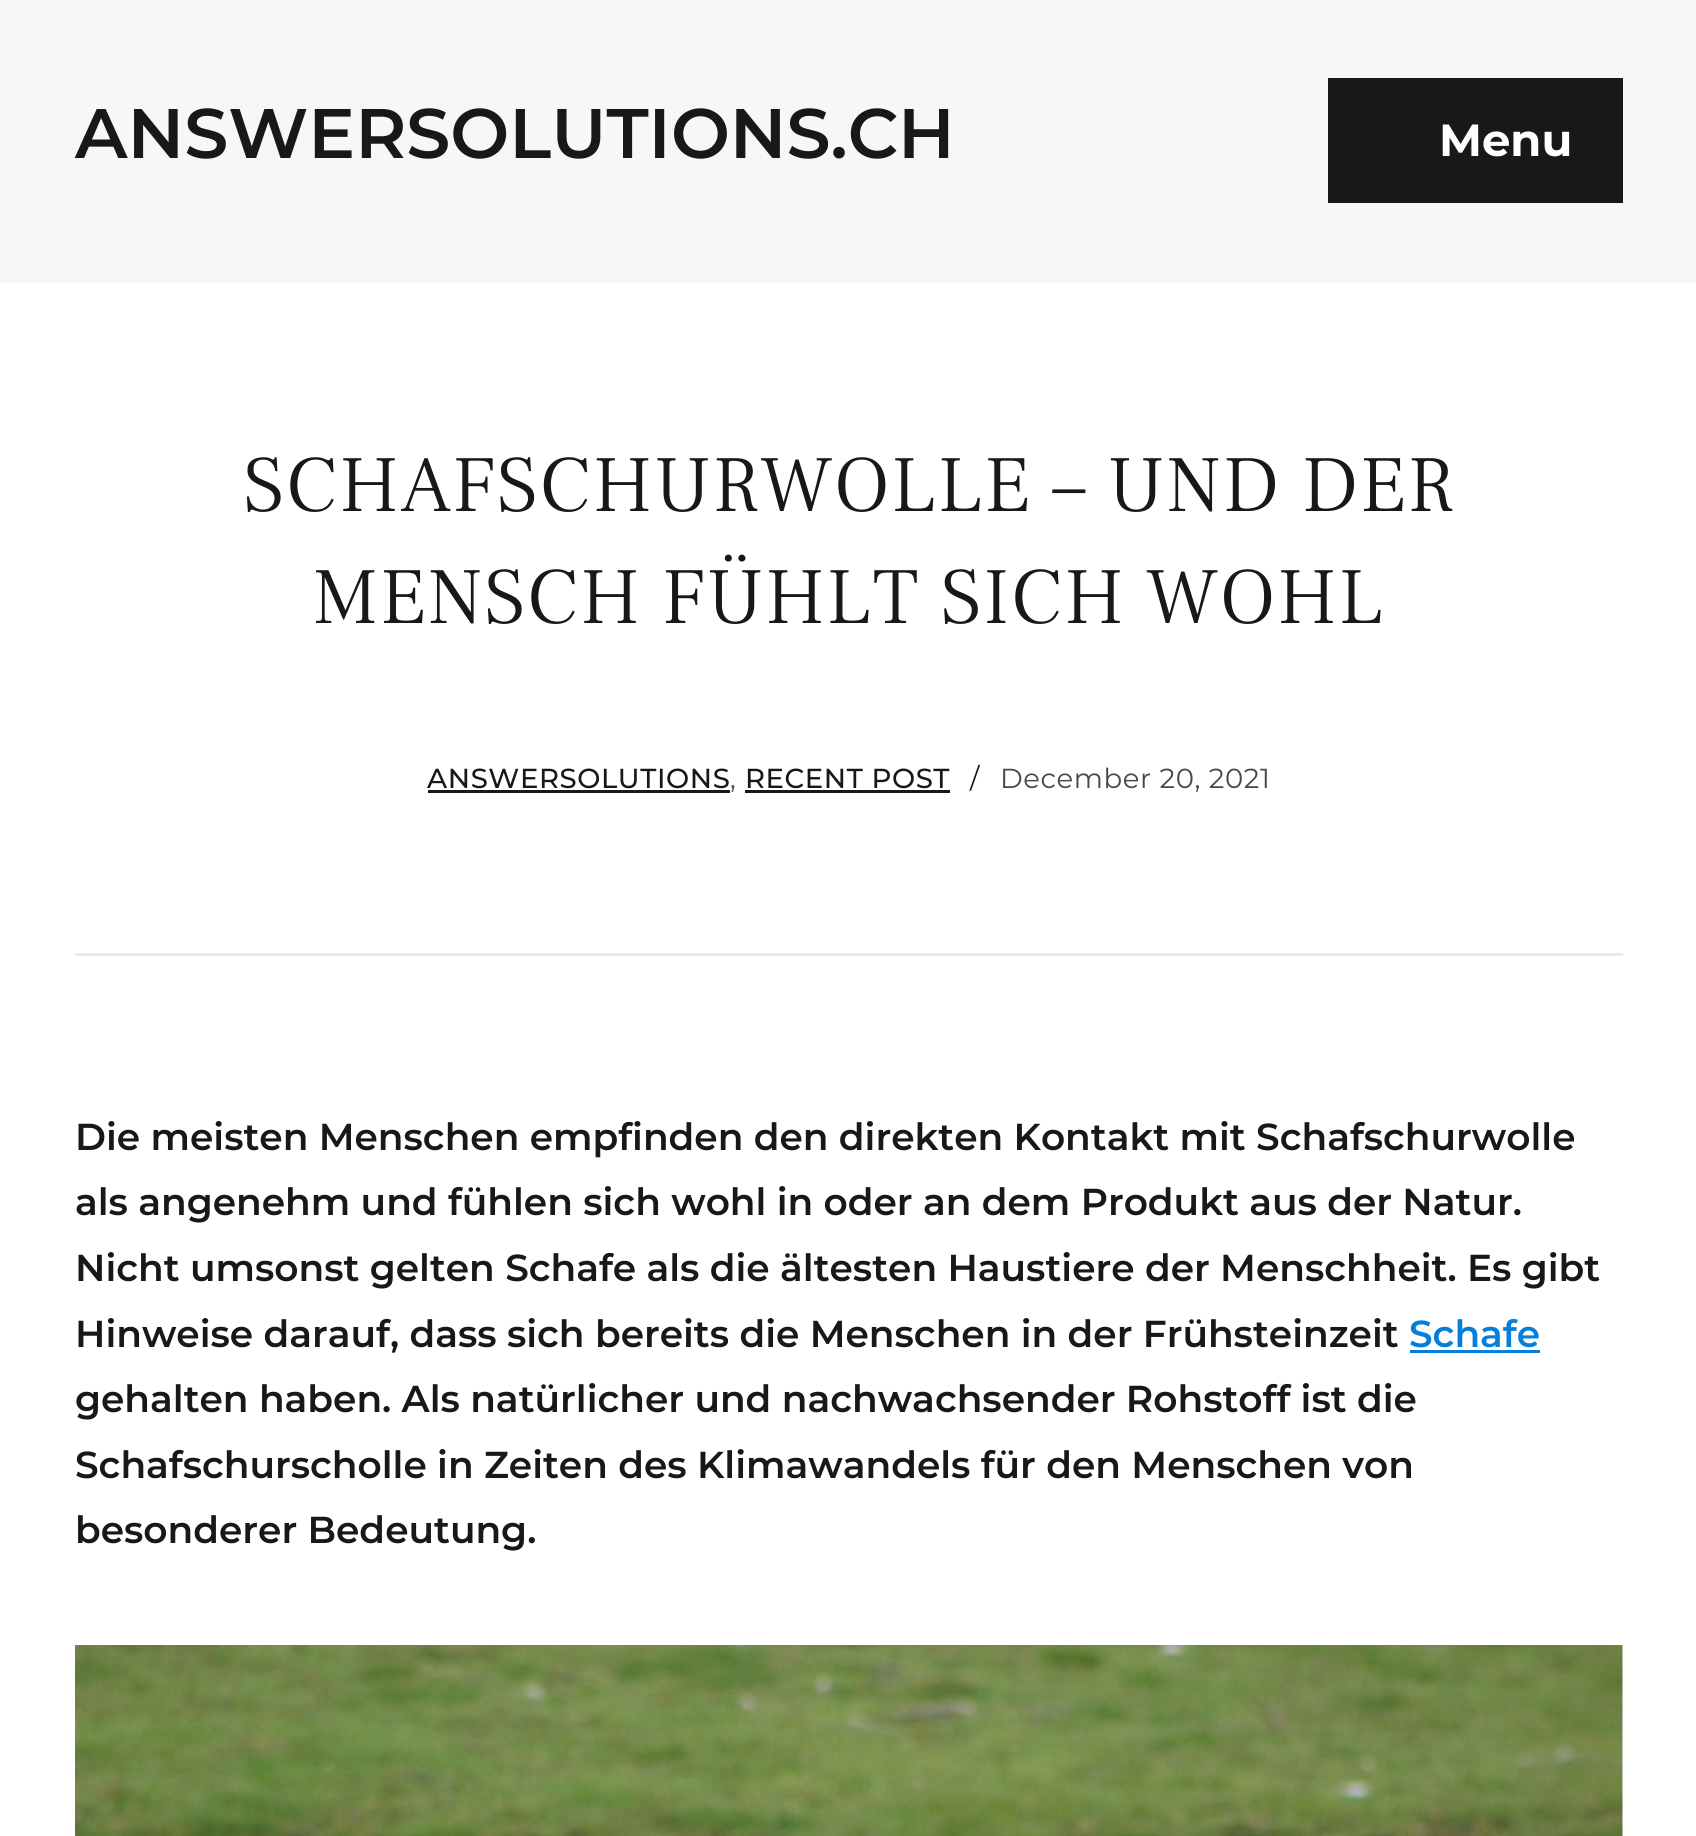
import math
import cairo


def use_color(cr, r, g, b):
  cr.set_source_rgb(r / 255, g / 255, b / 255)

def text(cr, x, y, s, family, size, color, bold=False, italic=False):
  cr.select_font_face(family, cairo.FONT_SLANT_ITALIC if italic else cairo.FONT_SLANT_NORMAL, cairo.FONT_WEIGHT_BOLD if bold else cairo.FONT_WEIGHT_NORMAL)
  cr.set_font_size(size)
  use_color(cr, *color)
  cr.move_to(x, y)
  cr.show_text(s)

def spaced_text(cr, x, y, s, letter, word):
  cr.move_to(x, y)
  for ch in s:
    cr.show_text(ch)
    cr.rel_move_to(letter + word * (ch == ' '), 0)

def box(cr, x, y, w, h, *color):
  use_color(cr, *color)
  cr.rectangle(x, y, w, h)
  cr.fill()

def picture(cr, path, x, y, w, h):
  cr.save()
  cr.set_source_surface(cairo.ImageSurface.create_from_png(path), x, y)
  cr.rectangle(x, y, w, h)
  cr.fill()
  cr.restore()

def draw(cr):
  use_color(cr, 255, 255, 255)
  cr.paint()
  box(cr, 0, 0, 1696, 283, 247, 247, 247)
  box(cr, 1328, 78, 295, 125, 24, 24, 24)
  box(cr, 428, 790, 302, 3, 24, 24, 24)
  box(cr, 745, 790, 205, 3, 24, 24, 24)
  box(cr, 75, 953, 1548, 3, 235, 235, 235)
  box(cr, 1410, 1350, 130, 3, 4, 127, 220)
  picture(cr, "img_01.png", 75, 1645, 1548, 191)
  text(cr, 75, 158, "ANSWERSOLUTIONS.CH", "Montserrat SemiBold", 70, (24, 24, 24))
  text(cr, 1439, 156, "Menu", "Montserrat", 45, (255, 255, 255), bold=True)
  cr.select_font_face("Frank Ruhl Libre Light")
  cr.set_font_size(80)
  use_color(cr, 24, 24, 24)
  spaced_text(cr, 243, 511, "SCHAFSCHURWOLLE – UND DER", 1.25, 0)
  spaced_text(cr, 313, 623, "MENSCH FÜHLT SICH WOHL", 1.25, 0)
  cr.select_font_face("Montserrat Medium")
  cr.set_font_size(27.5)
  spaced_text(cr, 427, 788, "ANSWERSOLUTIONS", 0.6, 0)
  cr.select_font_face("Montserrat")
  use_color(cr, 72, 72, 72)
  spaced_text(cr, 730, 788, ",", 0.6, 0)
  cr.select_font_face("Montserrat Medium")
  use_color(cr, 24, 24, 24)
  spaced_text(cr, 745, 788, "RECENT POST", 0.6, 0)
  cr.select_font_face("Montserrat")
  spaced_text(cr, 970, 788, "/", 0.6, 0)
  use_color(cr, 72, 72, 72)
  spaced_text(cr, 1000, 788, "December 20, 2021", 0.6, 0)
  text(cr, 75, 1150, "Die meisten Menschen empfinden den direkten Kontakt mit Schafschurwolle", "Montserrat SemiBold", 37.5, (24, 24, 24))
  text(cr, 75, 1215, "als angenehm und fühlen sich wohl in oder an dem Produkt aus der Natur.", "Montserrat SemiBold", 37.5, (24, 24, 24))
  text(cr, 75, 1281, "Nicht umsonst gelten Schafe als die ältesten Haustiere der Menschheit. Es gibt", "Montserrat SemiBold", 37.5, (24, 24, 24))
  text(cr, 75, 1347, "Hinweise darauf, dass sich bereits die Menschen in der Frühsteinzeit", "Montserrat SemiBold", 37.5, (24, 24, 24))
  text(cr, 1409, 1347, "Schafe", "Montserrat SemiBold", 37.5, (4, 127, 220))
  text(cr, 75, 1412, "gehalten haben. Als natürlicher und nachwachsender Rohstoff ist die", "Montserrat SemiBold", 37.5, (24, 24, 24))
  text(cr, 75, 1478, "Schafschurscholle in Zeiten des Klimawandels für den Menschen von", "Montserrat SemiBold", 37.5, (24, 24, 24))
  text(cr, 75, 1543, "besonderer Bedeutung.", "Montserrat SemiBold", 37.5, (24, 24, 24))


surface = cairo.ImageSurface(cairo.FORMAT_RGB24, 1696, 1836)
cr = cairo.Context(surface)
options = cairo.FontOptions()
options.set_hint_metrics(cairo.HINT_METRICS_OFF)
options.set_hint_style(cairo.HINT_STYLE_NONE)
cr.set_font_options(options)
cr.set_miter_limit(4)
draw(cr)
surface.write_to_png("out.png")
